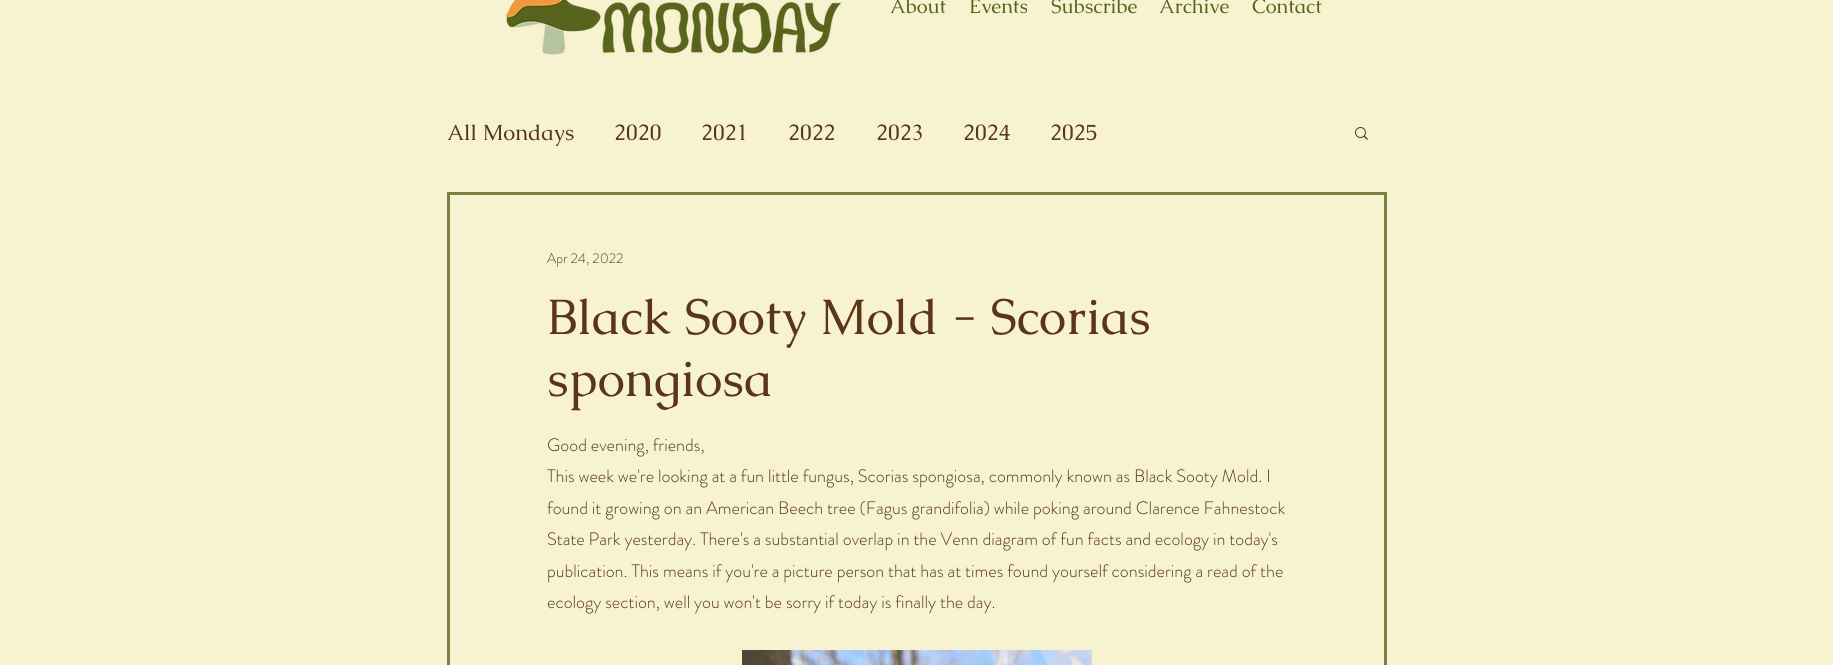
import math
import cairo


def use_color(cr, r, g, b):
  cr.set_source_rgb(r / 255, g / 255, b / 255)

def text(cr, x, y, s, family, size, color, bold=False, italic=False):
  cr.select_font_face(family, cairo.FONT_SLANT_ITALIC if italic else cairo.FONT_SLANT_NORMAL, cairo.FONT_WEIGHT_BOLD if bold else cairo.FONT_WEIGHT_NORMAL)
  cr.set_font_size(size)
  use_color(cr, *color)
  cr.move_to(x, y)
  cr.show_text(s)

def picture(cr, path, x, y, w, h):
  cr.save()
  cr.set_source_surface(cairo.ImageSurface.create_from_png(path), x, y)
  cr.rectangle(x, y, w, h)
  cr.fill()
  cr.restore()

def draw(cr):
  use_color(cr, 247, 243, 209)
  cr.paint()
  picture(cr, "img_01.png", 505, 0, 337, 55)
  picture(cr, "img_02.png", 1355, 127, 13, 13)
  cr.rectangle(448.5, 193.5, 937, 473)
  use_color(cr, 120, 129, 65)
  cr.set_line_width(3)
  cr.stroke()
  picture(cr, "img_03.png", 742, 650, 350, 15)
  text(cr, 890, 13, "About", "Caudex", 20, (88, 100, 29))
  text(cr, 969, 13, "Events", "Caudex", 20, (88, 100, 29))
  text(cr, 1051, 13, "Subscribe", "Caudex", 20, (88, 100, 29))
  text(cr, 1159, 13, "Archive", "Caudex", 20, (88, 100, 29))
  text(cr, 1252, 13, "Contact", "Caudex", 20, (88, 100, 29))
  text(cr, 447, 140, "All Mondays", "Caudex", 22, (90, 54, 23))
  text(cr, 614, 140, "2020", "Caudex", 22, (90, 54, 23))
  text(cr, 701, 140, "2021", "Caudex", 22, (90, 54, 23))
  text(cr, 788, 140, "2022", "Caudex", 22, (90, 54, 23))
  text(cr, 876, 140, "2023", "Caudex", 22, (90, 54, 23))
  text(cr, 963, 140, "2024", "Caudex", 22, (90, 54, 23))
  text(cr, 1050, 140, "2025", "Caudex", 22, (90, 54, 23))
  text(cr, 547, 263, "Apr 24, 2022", "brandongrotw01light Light", 14, (90, 54, 23))
  text(cr, 547, 334, "Black Sooty Mold - Scorias", "Caudex", 50, (90, 54, 23))
  text(cr, 547, 396, "spongiosa", "Caudex", 50, (90, 54, 23))
  text(cr, 547, 451, "Good evening, friends,", "brandongrotw01light Light", 18, (90, 54, 23))
  text(cr, 547, 482, "This week we're looking at a fun little fungus, Scorias spongiosa, commonly known as Black Sooty Mold. I", "brandongrotw01light Light", 18, (90, 54, 23))
  text(cr, 547, 514, "found it growing on an American Beech tree (Fagus grandifolia) while poking around Clarence Fahnestock", "brandongrotw01light Light", 18, (90, 54, 23))
  text(cr, 547, 545, "State Park yesterday. There's a substantial overlap in the Venn diagram of fun facts and ecology in today's", "brandongrotw01light Light", 18, (90, 54, 23))
  text(cr, 547, 577, "publication. This means if you're a picture person that has at times found yourself considering a read of the", "brandongrotw01light Light", 18, (90, 54, 23))
  text(cr, 547, 608, "ecology section, well you won't be sorry if today is finally the day.", "brandongrotw01light Light", 18, (90, 54, 23))


surface = cairo.ImageSurface(cairo.FORMAT_RGB24, 1833, 665)
cr = cairo.Context(surface)
options = cairo.FontOptions()
options.set_hint_metrics(cairo.HINT_METRICS_OFF)
options.set_hint_style(cairo.HINT_STYLE_NONE)
cr.set_font_options(options)
cr.set_miter_limit(4)
draw(cr)
surface.write_to_png("out.png")
